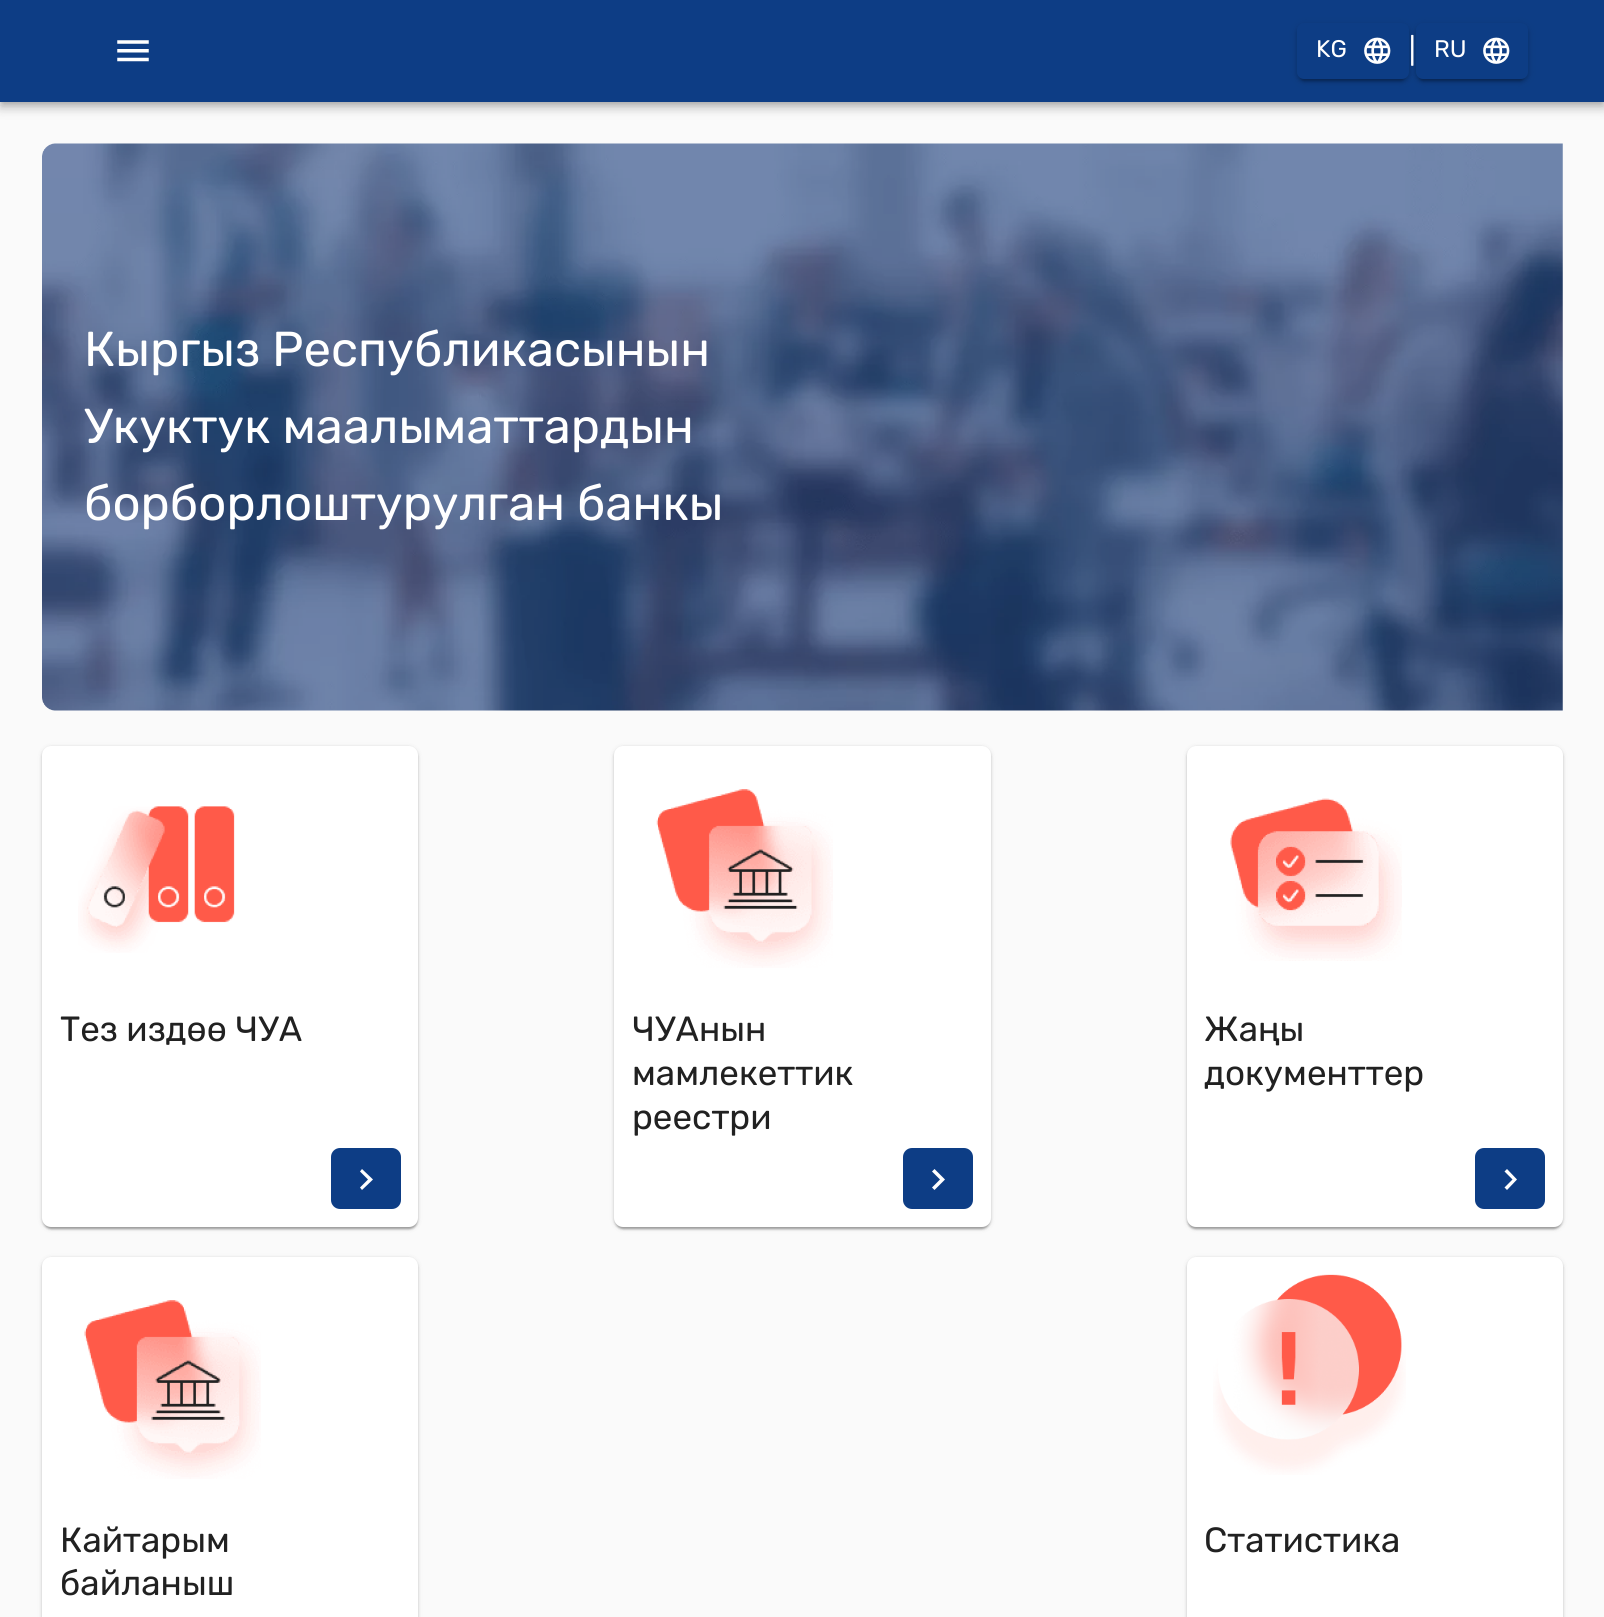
import math
import cairo


def use_color(cr, r, g, b):
  cr.set_source_rgb(r / 255, g / 255, b / 255)

def text(cr, x, y, s, family, size, color, bold=False, italic=False):
  cr.select_font_face(family, cairo.FONT_SLANT_ITALIC if italic else cairo.FONT_SLANT_NORMAL, cairo.FONT_WEIGHT_BOLD if bold else cairo.FONT_WEIGHT_NORMAL)
  cr.set_font_size(size)
  use_color(cr, *color)
  cr.move_to(x, y)
  cr.show_text(s)

def box(cr, x, y, w, h, *color):
  use_color(cr, *color)
  cr.rectangle(x, y, w, h)
  cr.fill()

def round_rect(cr, x, y, w, h, r):
  cr.new_sub_path()
  for i, (u, v) in enumerate([(x + w - r, y + h - r), (x + r, y + h - r), (x + r, y + r), (x + w - r, y + r)]):
    cr.arc(u, v, r, i * math.pi / 2, (i + 1) * math.pi / 2)
  cr.close_path()

def shadow(cr, x, y, w, h, r, blur, alpha):
  cr.push_group_with_content(cairo.CONTENT_ALPHA)
  cr.set_operator(cairo.OPERATOR_SOURCE)
  for i in range(15, -16, -2):
    e = blur * i / 6
    if min(w, h) + 2 * e > 0:
      cr.set_source_rgba(0, 0, 0, alpha * math.erfc((i - 1) / 8.5) / 2)
      round_rect(cr, x - e, y - e, w + 2 * e, h + 2 * e, max(0, min(r + e + blur * .6, min(w, h) / 2 + e)))
      cr.fill()
  cr.mask(cr.pop_group())

def picture(cr, path, x, y, w, h):
  cr.save()
  cr.set_source_surface(cairo.ImageSurface.create_from_png(path), x, y)
  cr.rectangle(x, y, w, h)
  cr.fill()
  cr.restore()

def draw(cr):
  use_color(cr, 250, 250, 250)
  cr.paint()
  use_color(cr, 0, 0, 0)
  shadow(cr, 0, 2, 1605, 101, 0, 9, 0.12)
  shadow(cr, 0, 7, 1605, 102, 0, 4.5, 0.14)
  shadow(cr, 2, 5, 1601, 98, 0, 3.5, 0.2)
  box(cr, 0, 0, 1604, 102, 13, 61, 133)
  picture(cr, "img_01.png", 117, 40, 32, 22)
  use_color(cr, 0, 0, 0)
  shadow(cr, 1297, 25, 112, 56, 7, 4.5, 0.12)
  shadow(cr, 1297, 26, 112, 56, 7, 2, 0.14)
  shadow(cr, 1300, 32, 105, 49, 4, 1, 0.2)
  use_color(cr, 13, 61, 133)
  round_rect(cr, 1297, 23, 112, 56, 7)
  cr.fill()
  picture(cr, "img_02.png", 1364, 37, 27, 27)
  use_color(cr, 0, 0, 0)
  shadow(cr, 1416, 25, 112, 56, 7, 4.5, 0.12)
  shadow(cr, 1416, 26, 112, 56, 7, 2, 0.14)
  shadow(cr, 1419, 32, 105, 49, 4, 1, 0.2)
  use_color(cr, 13, 61, 133)
  round_rect(cr, 1416, 23, 112, 56, 7)
  cr.fill()
  picture(cr, "img_02.png", 1483, 37, 27, 27)
  picture(cr, "img_03.png", 42, 143, 1521, 568)
  use_color(cr, 0, 0, 0)
  shadow(cr, 42, 747, 376, 482, 9, 2.5, 0.12)
  shadow(cr, 42, 747, 376, 482, 9, 1, 0.14)
  shadow(cr, 44, 751, 373, 478, 7, 1, 0.2)
  use_color(cr, 255, 255, 255)
  round_rect(cr, 42, 746, 376, 481, 9)
  cr.fill()
  picture(cr, "img_04.png", 78, 806, 157, 147)
  use_color(cr, 13, 61, 133)
  round_rect(cr, 331, 1148, 70, 61, 9)
  cr.fill()
  use_color(cr, 255, 255, 255)
  cr.new_path()
  cr.move_to(362, 1169)
  cr.line_to(360, 1171.5)
  cr.line_to(368, 1179.5)
  cr.line_to(360, 1187.5)
  cr.line_to(362, 1190)
  cr.line_to(373, 1179.5)
  cr.close_path()
  cr.fill()
  use_color(cr, 0, 0, 0)
  shadow(cr, 614, 747, 377, 482, 9, 2.5, 0.12)
  shadow(cr, 614, 747, 377, 482, 9, 1, 0.14)
  shadow(cr, 616, 751, 373, 478, 7, 1, 0.2)
  use_color(cr, 255, 255, 255)
  round_rect(cr, 614, 746, 377, 481, 9)
  cr.fill()
  picture(cr, "img_05.png", 656, 789, 177, 179)
  use_color(cr, 13, 61, 133)
  round_rect(cr, 903, 1148, 70, 61, 9)
  cr.fill()
  use_color(cr, 255, 255, 255)
  cr.new_path()
  cr.move_to(934.5, 1169)
  cr.line_to(932, 1171.5)
  cr.line_to(940, 1179.5)
  cr.line_to(932, 1187.5)
  cr.line_to(934.5, 1190)
  cr.line_to(945, 1179.5)
  cr.close_path()
  cr.fill()
  use_color(cr, 0, 0, 0)
  shadow(cr, 1187, 747, 376, 482, 9, 2.5, 0.12)
  shadow(cr, 1187, 747, 376, 482, 9, 1, 0.14)
  shadow(cr, 1188, 751, 373, 478, 7, 1, 0.2)
  use_color(cr, 255, 255, 255)
  round_rect(cr, 1187, 746, 376, 481, 9)
  cr.fill()
  picture(cr, "img_06.png", 1230, 798, 172, 163)
  use_color(cr, 13, 61, 133)
  round_rect(cr, 1475, 1148, 70, 61, 9)
  cr.fill()
  use_color(cr, 255, 255, 255)
  cr.new_path()
  cr.move_to(1507, 1169)
  cr.line_to(1504.5, 1171.5)
  cr.line_to(1512.5, 1179.5)
  cr.line_to(1504.5, 1187.5)
  cr.line_to(1507, 1190)
  cr.line_to(1517, 1179.5)
  cr.close_path()
  cr.fill()
  use_color(cr, 0, 0, 0)
  shadow(cr, 42, 1258, 376, 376, 9, 2.5, 0.12)
  shadow(cr, 42, 1258, 376, 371, 9, 1, 0.14)
  use_color(cr, 255, 255, 255)
  round_rect(cr, 42, 1257, 376, 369, 9)
  cr.fill()
  picture(cr, "img_07.png", 84, 1300, 177, 179)
  use_color(cr, 0, 0, 0)
  shadow(cr, 1187, 1258, 376, 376, 9, 2.5, 0.12)
  shadow(cr, 1187, 1258, 376, 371, 9, 1, 0.14)
  use_color(cr, 255, 255, 255)
  round_rect(cr, 1187, 1257, 376, 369, 9)
  cr.fill()
  picture(cr, "img_08.png", 1213, 1274, 193, 201)
  text(cr, 1316, 57, "KG", "Rubik", 24, (255, 255, 255))
  text(cr, 1409, 60, "|", "Rubik", 28, (255, 255, 255))
  text(cr, 1434, 57, "RU", "Rubik", 24, (255, 255, 255))
  text(cr, 84, 366, "Кыргыз Республикасынын", "Rubik", 49, (255, 255, 255))
  text(cr, 84, 443, "Укуктук маалыматтардын", "Rubik", 49, (255, 255, 255))
  text(cr, 84, 520, "борборлоштурулган банкы", "Rubik", 49, (255, 255, 255))
  text(cr, 60, 1041, "Тез издөө ЧУА", "Rubik", 35, (33, 33, 33))
  text(cr, 632, 1041, "ЧУАнын", "Rubik", 35, (33, 33, 33))
  text(cr, 632, 1085, "мамлекеттик", "Rubik", 35, (33, 33, 33))
  text(cr, 632, 1129, "реестри", "Rubik", 35, (33, 33, 33))
  text(cr, 1204, 1041, "Жаңы", "Rubik", 35, (33, 33, 33))
  text(cr, 1204, 1085, "документтер", "Rubik", 35, (33, 33, 33))
  text(cr, 60, 1552, "Кайтарым", "Rubik", 35, (33, 33, 33))
  text(cr, 60, 1595, "байланыш", "Rubik", 35, (33, 33, 33))
  text(cr, 1204, 1552, "Статистика", "Rubik", 35, (33, 33, 33))


surface = cairo.ImageSurface(cairo.FORMAT_RGB24, 1604, 1617)
cr = cairo.Context(surface)
options = cairo.FontOptions()
options.set_hint_metrics(cairo.HINT_METRICS_OFF)
options.set_hint_style(cairo.HINT_STYLE_NONE)
cr.set_font_options(options)
cr.set_miter_limit(4)
draw(cr)
surface.write_to_png("out.png")
